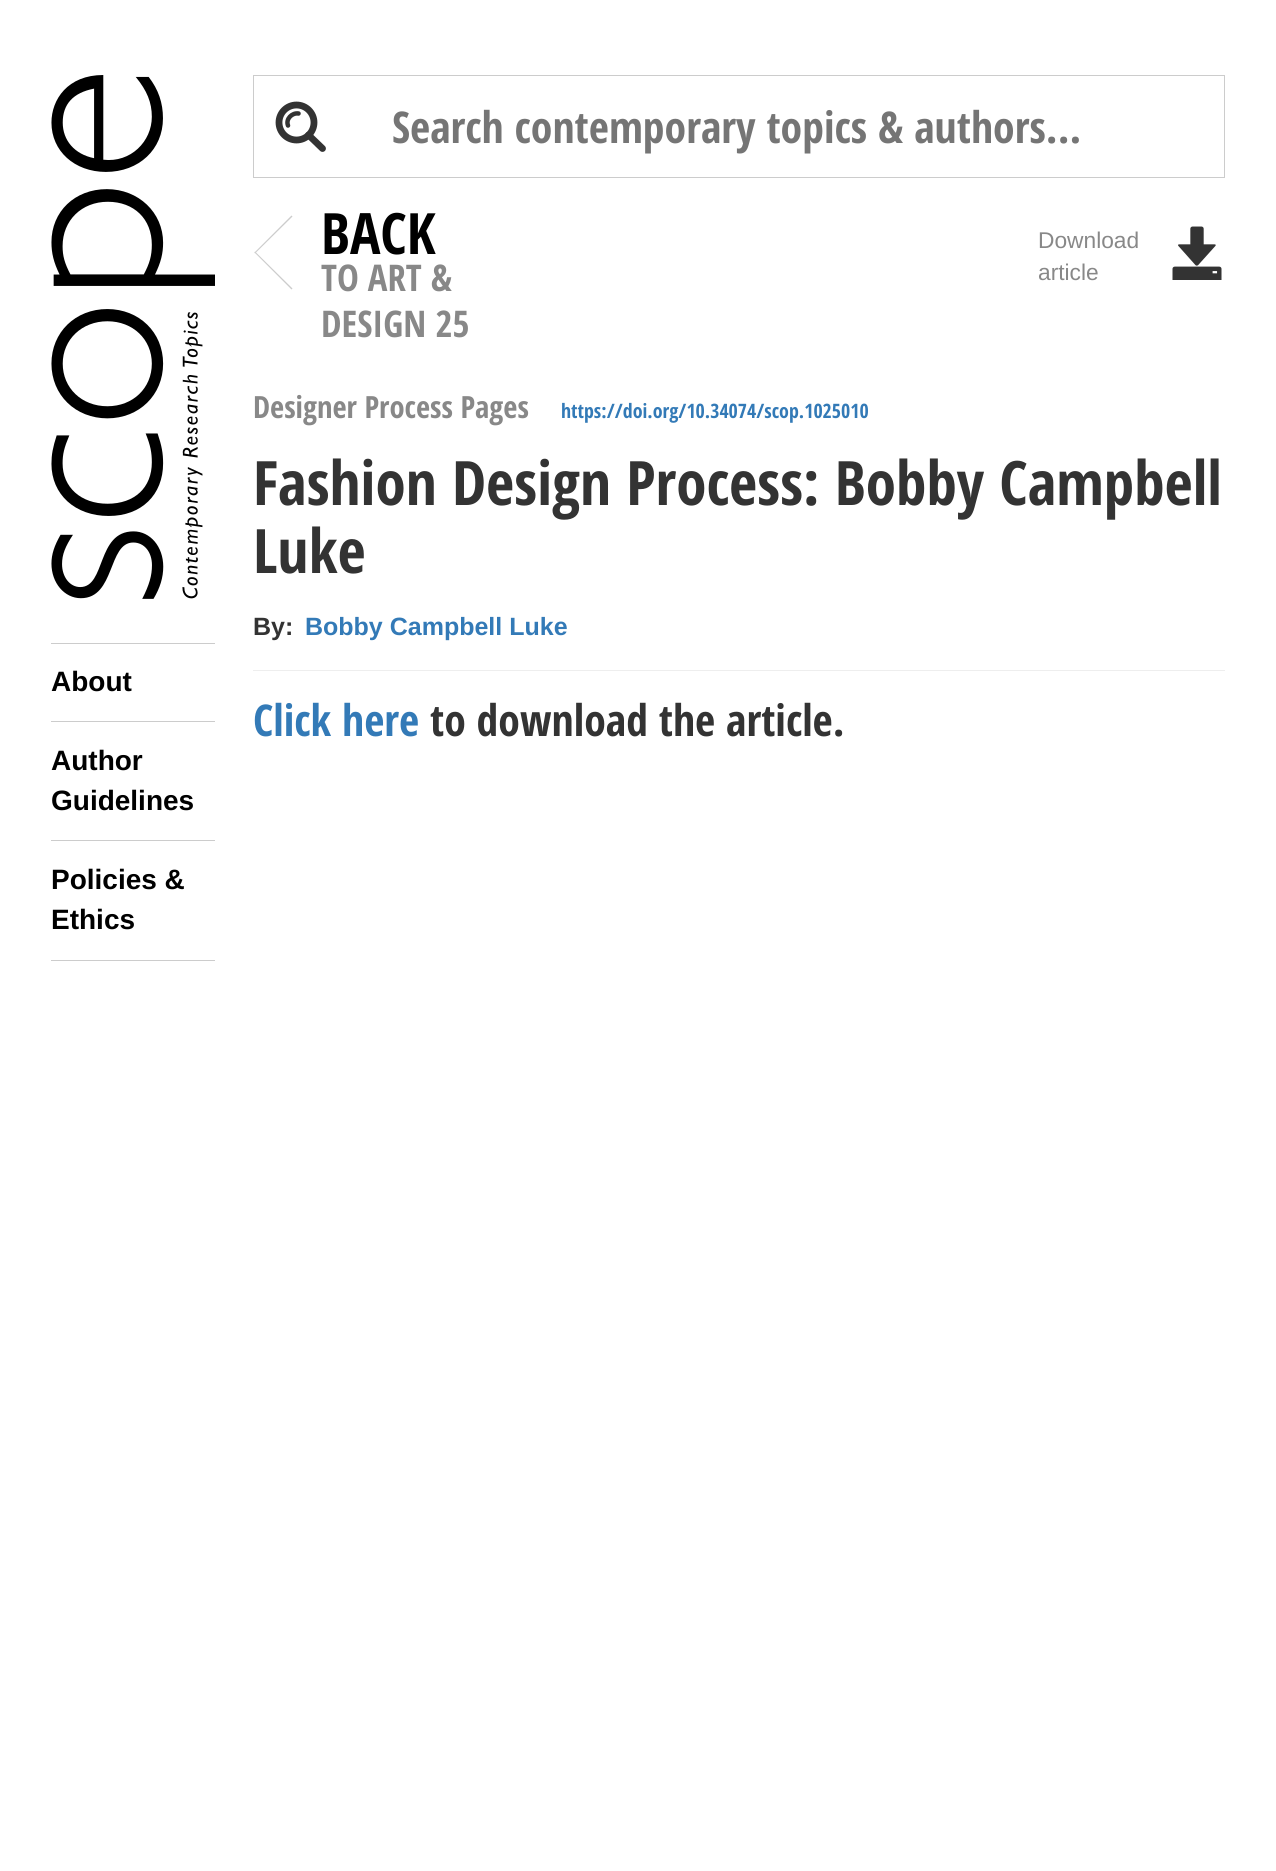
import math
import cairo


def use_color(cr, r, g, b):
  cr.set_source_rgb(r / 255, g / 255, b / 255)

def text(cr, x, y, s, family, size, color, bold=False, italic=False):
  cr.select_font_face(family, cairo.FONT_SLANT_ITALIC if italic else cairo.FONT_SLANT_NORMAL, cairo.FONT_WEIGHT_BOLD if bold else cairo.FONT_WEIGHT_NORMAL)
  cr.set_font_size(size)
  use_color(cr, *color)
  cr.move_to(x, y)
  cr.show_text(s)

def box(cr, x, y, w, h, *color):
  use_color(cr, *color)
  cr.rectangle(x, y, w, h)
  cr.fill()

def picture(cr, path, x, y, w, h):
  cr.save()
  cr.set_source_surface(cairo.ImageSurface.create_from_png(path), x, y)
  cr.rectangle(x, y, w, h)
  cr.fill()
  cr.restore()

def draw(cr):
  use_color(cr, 255, 255, 255)
  cr.paint()
  cr.arc(296.5, 122.5, 17.5, 0, 2 * math.pi)
  use_color(cr, 51, 51, 51)
  cr.set_line_width(6.8)
  cr.stroke()
  cr.new_path()
  cr.move_to(308.5, 135)
  cr.line_to(322.5, 148.5)
  cr.set_line_cap(cairo.LINE_CAP_ROUND)
  cr.stroke()
  cr.new_path()
  cr.move_to(288, 125.5)
  cr.curve_to(285.5, 119, 292, 112.5, 298.5, 113.5)
  cr.set_line_width(4.5)
  cr.stroke()
  cr.rectangle(253.5, 75.5, 971, 102)
  use_color(cr, 204, 204, 204)
  cr.set_line_width(1)
  cr.set_line_cap(cairo.LINE_CAP_BUTT)
  cr.stroke()
  cr.new_path()
  cr.move_to(292.5, 288.5)
  cr.line_to(291.5, 289.5)
  cr.line_to(254.5, 252.5)
  cr.line_to(255, 251.5)
  cr.close_path()
  cr.fill()
  cr.new_path()
  cr.move_to(292.5, 216.5)
  cr.line_to(255, 253.5)
  cr.line_to(254.5, 252.5)
  cr.line_to(291.5, 215.5)
  cr.close_path()
  cr.fill()
  picture(cr, "img_01.png", 1172, 226, 50, 54)
  box(cr, 253, 670, 972, 1, 238, 238, 238)
  picture(cr, "img_02.png", 51, 75, 164, 524)
  box(cr, 51, 643, 164, 1, 204, 204, 204)
  box(cr, 51, 721, 164, 1, 204, 204, 204)
  box(cr, 51, 840, 164, 1, 204, 204, 204)
  box(cr, 51, 960, 164, 1, 204, 204, 204)
  text(cr, 392, 143, "Search contemporary topics & authors...", "Open Sans Condensed", 43.75, (117, 117, 117), bold=True)
  text(cr, 321, 254, "BACK", "Open Sans Condensed", 57, (0, 0, 0), bold=True)
  text(cr, 321, 291, "TO ART &", "Open Sans Condensed", 36.75, (136, 136, 136), bold=True)
  text(cr, 321, 337, "DESIGN 25", "Open Sans Condensed", 36.75, (136, 136, 136), bold=True)
  text(cr, 1038, 248, "Download", "Liberation Sans", 22.75, (136, 136, 136))
  text(cr, 1038, 280, "article", "Liberation Sans", 22.75, (136, 136, 136))
  text(cr, 253, 418, "Designer Process Pages", "Open Sans Condensed", 30.6, (136, 136, 136), bold=True)
  text(cr, 561, 418, "https://doi.org/10.34074/scop.1025010", "Open Sans Condensed", 19.9, (51, 122, 183), bold=True)
  text(cr, 253, 505, "Fashion Design Process: Bobby Campbell", "Open Sans Condensed", 61.25, (51, 51, 51), bold=True)
  text(cr, 253, 573, "Luke", "Open Sans Condensed", 61.25, (51, 51, 51), bold=True)
  text(cr, 253, 635, "By:", "Liberation Sans", 25, (51, 51, 51), bold=True)
  text(cr, 305, 635, "Bobby Campbell Luke", "Liberation Sans", 25, (51, 122, 183), bold=True)
  text(cr, 253, 736, "Click here", "Open Sans Condensed", 43.75, (51, 122, 183), bold=True)
  text(cr, 430, 736, "to download the article.", "Open Sans Condensed", 43.75, (51, 51, 51), bold=True)
  text(cr, 51, 691, "About", "Liberation Sans", 28, (0, 0, 0), bold=True)
  text(cr, 51, 770, "Author", "Liberation Sans", 28, (0, 0, 0), bold=True)
  text(cr, 51, 810, "Guidelines", "Liberation Sans", 28, (0, 0, 0), bold=True)
  text(cr, 51, 889, "Policies &", "Liberation Sans", 28, (0, 0, 0), bold=True)
  text(cr, 51, 929, "Ethics", "Liberation Sans", 28, (0, 0, 0), bold=True)


surface = cairo.ImageSurface(cairo.FORMAT_RGB24, 1276, 1871)
cr = cairo.Context(surface)
options = cairo.FontOptions()
options.set_hint_metrics(cairo.HINT_METRICS_OFF)
options.set_hint_style(cairo.HINT_STYLE_NONE)
cr.set_font_options(options)
cr.set_miter_limit(4)
draw(cr)
surface.write_to_png("out.png")
